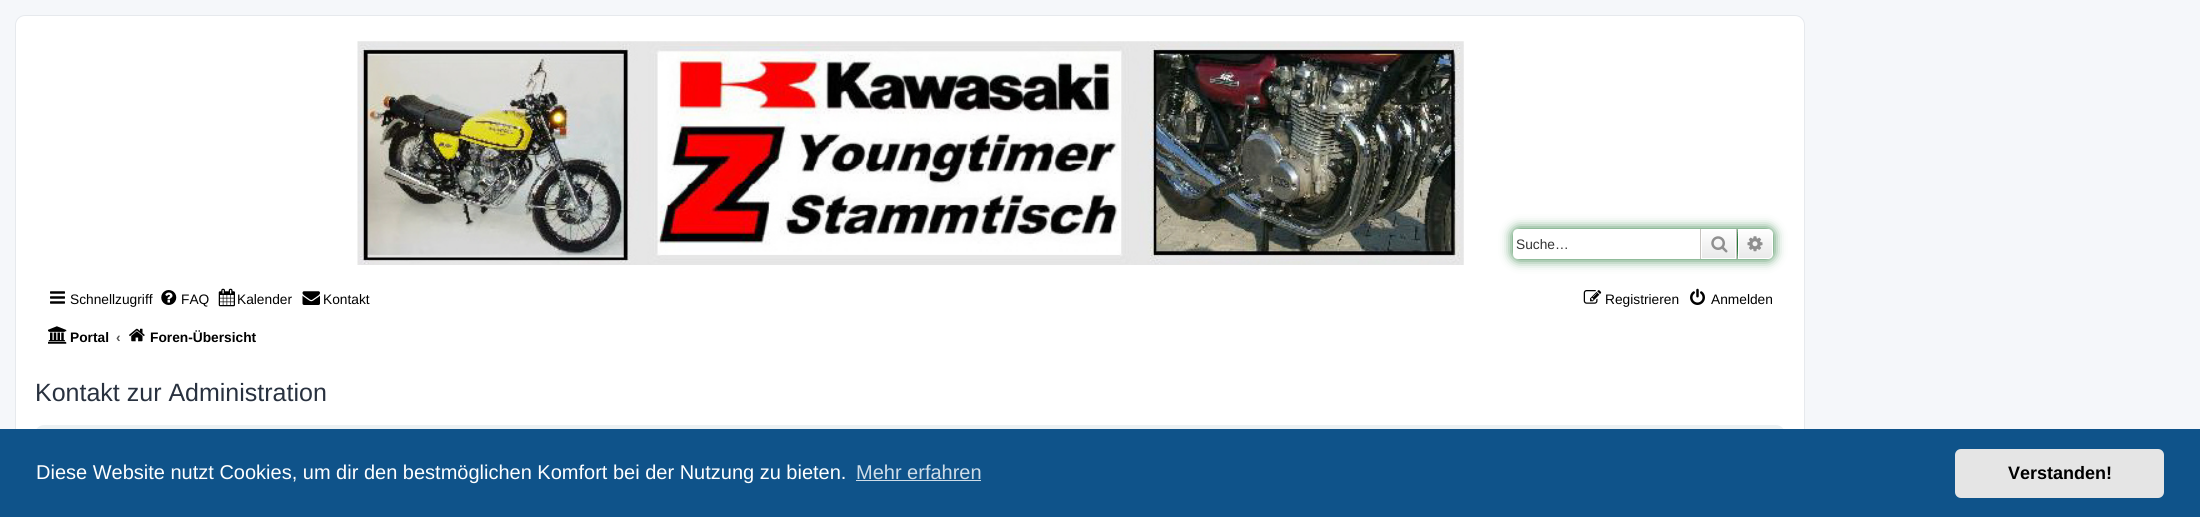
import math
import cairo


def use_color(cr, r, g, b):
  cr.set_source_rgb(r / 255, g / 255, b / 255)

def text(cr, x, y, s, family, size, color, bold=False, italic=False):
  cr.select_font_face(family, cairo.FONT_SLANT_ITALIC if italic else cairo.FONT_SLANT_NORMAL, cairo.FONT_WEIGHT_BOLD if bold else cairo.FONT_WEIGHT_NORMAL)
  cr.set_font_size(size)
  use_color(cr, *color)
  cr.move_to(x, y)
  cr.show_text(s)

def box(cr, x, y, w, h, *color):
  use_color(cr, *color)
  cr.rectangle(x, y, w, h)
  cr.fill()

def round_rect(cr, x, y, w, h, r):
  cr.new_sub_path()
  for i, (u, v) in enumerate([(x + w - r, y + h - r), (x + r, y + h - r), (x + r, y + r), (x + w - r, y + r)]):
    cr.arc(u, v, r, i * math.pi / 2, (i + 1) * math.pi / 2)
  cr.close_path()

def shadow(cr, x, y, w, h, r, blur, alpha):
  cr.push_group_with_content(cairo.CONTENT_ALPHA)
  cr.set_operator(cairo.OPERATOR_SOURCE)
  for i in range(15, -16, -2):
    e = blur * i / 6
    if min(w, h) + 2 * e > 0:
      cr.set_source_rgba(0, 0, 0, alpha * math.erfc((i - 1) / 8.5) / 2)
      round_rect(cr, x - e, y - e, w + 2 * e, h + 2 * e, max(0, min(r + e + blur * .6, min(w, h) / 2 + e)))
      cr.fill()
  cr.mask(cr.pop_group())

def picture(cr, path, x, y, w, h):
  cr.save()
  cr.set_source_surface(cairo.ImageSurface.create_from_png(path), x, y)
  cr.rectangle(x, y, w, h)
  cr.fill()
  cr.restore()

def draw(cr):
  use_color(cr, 245, 247, 250)
  cr.paint()
  use_color(cr, 255, 255, 255)
  round_rect(cr, 15.5, 15.5, 1789, 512, 9.5)
  cr.fill_preserve()
  use_color(cr, 230, 233, 237)
  cr.set_line_width(1)
  cr.stroke()
  picture(cr, "img_01.png", 357, 41, 1107, 224)
  use_color(cr, 34, 119, 54)
  shadow(cr, 1513, 229, 260, 30, 5, 6, 1)
  use_color(cr, 255, 255, 255)
  cr.new_path()
  cr.move_to(1518, 229)
  cr.line_to(1700, 229)
  cr.line_to(1700, 259)
  cr.line_to(1518, 259)
  cr.curve_to(1515, 259, 1513, 257, 1513, 254)
  cr.line_to(1513, 234)
  cr.curve_to(1513, 231, 1515, 229, 1518, 229)
  cr.close_path()
  cr.fill()
  gradient = cairo.LinearGradient(1719, 229, 1719, 259)
  gradient.add_color_stop_rgba(0, 1, 1, 1, 1)
  gradient.add_color_stop_rgba(1, 0.914, 0.914, 0.914, 1)
  cr.set_source(gradient)
  cr.rectangle(1702, 230, 33, 28)
  cr.fill()
  cr.rectangle(1701.5, 229.5, 34, 29)
  use_color(cr, 255, 255, 255)
  cr.stroke()
  box(cr, 1736, 229, 1, 30, 199, 195, 191)
  box(cr, 1700, 229, 1, 30, 199, 195, 191)
  picture(cr, "img_02.png", 1711, 236, 17, 17)
  gradient = cairo.LinearGradient(1755, 229, 1755, 259)
  gradient.add_color_stop_rgba(0, 1, 1, 1, 1)
  gradient.add_color_stop_rgba(1, 0.914, 0.914, 0.914, 1)
  cr.set_source(gradient)
  cr.new_path()
  cr.move_to(1738.5, 229.5)
  cr.line_to(1768, 229.5)
  cr.curve_to(1770.5, 229.5, 1772.5, 231.5, 1772.5, 234)
  cr.line_to(1772.5, 254)
  cr.curve_to(1772.5, 256.5, 1770.5, 258.5, 1768, 258.5)
  cr.line_to(1738.5, 258.5)
  cr.close_path()
  cr.fill_preserve()
  use_color(cr, 255, 255, 255)
  cr.stroke()
  picture(cr, "img_03.png", 1747, 236, 16, 16)
  picture(cr, "img_04.png", 50, 291, 15, 13)
  picture(cr, "img_05.png", 161, 290, 16, 15)
  picture(cr, "img_06.png", 218, 288, 17, 19)
  picture(cr, "img_07.png", 302, 291, 18, 14)
  picture(cr, "img_08.png", 1583, 290, 19, 14)
  picture(cr, "img_09.png", 1690, 288, 15, 17)
  picture(cr, "img_10.png", 48, 326, 19, 18)
  picture(cr, "img_11.png", 129, 328, 16, 14)
  use_color(cr, 236, 241, 243)
  round_rect(cr, 35, 425, 1750, 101, 9)
  cr.fill()
  box(cr, 0, 429, 2200, 88, 15, 83, 138)
  box(cr, 856, 480, 125, 1, 207, 221, 232)
  use_color(cr, 229, 229, 229)
  round_rect(cr, 1955, 449, 209, 49, 6)
  cr.fill()
  text(cr, 1516, 249, "Suche…", "Liberation Sans", 13.75, (51, 51, 51))
  text(cr, 70, 304, "Schnellzugriff", "Liberation Sans", 13.75, (0, 0, 0))
  text(cr, 181, 304, "FAQ", "Liberation Sans", 13.75, (0, 0, 0))
  text(cr, 237, 304, "Kalender", "Liberation Sans", 13.75, (0, 0, 0))
  text(cr, 323, 304, "Kontakt", "Liberation Sans", 13.75, (0, 0, 0))
  text(cr, 1605, 304, "Registrieren", "Liberation Sans", 13.75, (0, 0, 0))
  text(cr, 1711, 304, "Anmelden", "Liberation Sans", 13.75, (0, 0, 0))
  text(cr, 70, 342, "Portal", "Liberation Sans", 13.75, (0, 0, 0), bold=True)
  text(cr, 116, 342, "‹", "Liberation Sans", 13.75, (85, 85, 85), bold=True)
  text(cr, 150, 342, "Foren-Übersicht", "Liberation Sans", 13.75, (0, 0, 0), bold=True)
  text(cr, 35, 401, "Kontakt zur Administration", "Liberation Sans", 25, (40, 49, 63))
  text(cr, 36, 479, "Diese Website nutzt Cookies, um dir den bestmöglichen Komfort bei der Nutzung zu bieten.", "Liberation Sans", 20, (255, 255, 255))
  text(cr, 856, 479, "Mehr erfahren", "Liberation Sans", 20, (207, 221, 232))
  text(cr, 2008, 479, "Verstanden!", "Liberation Sans", 18, (0, 0, 0), bold=True)


surface = cairo.ImageSurface(cairo.FORMAT_RGB24, 2200, 517)
cr = cairo.Context(surface)
options = cairo.FontOptions()
options.set_hint_metrics(cairo.HINT_METRICS_OFF)
options.set_hint_style(cairo.HINT_STYLE_NONE)
cr.set_font_options(options)
cr.set_miter_limit(4)
draw(cr)
surface.write_to_png("out.png")
